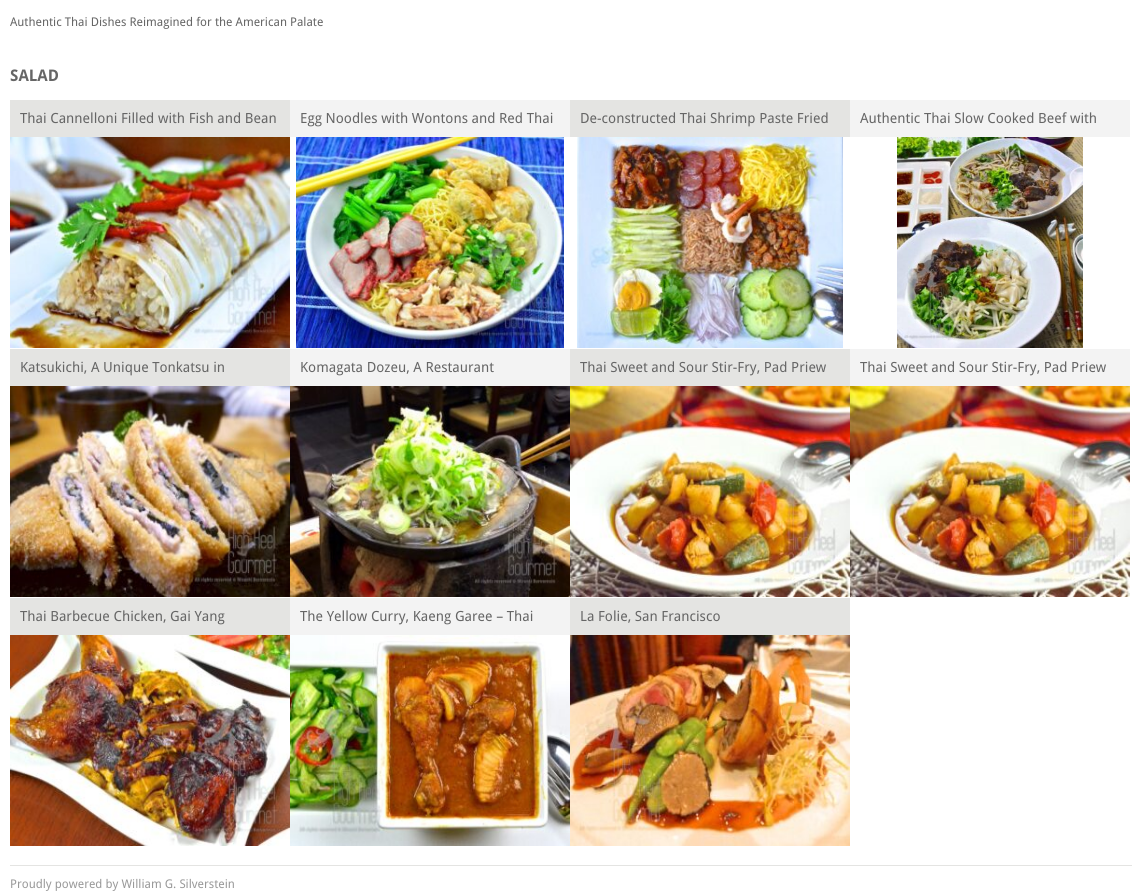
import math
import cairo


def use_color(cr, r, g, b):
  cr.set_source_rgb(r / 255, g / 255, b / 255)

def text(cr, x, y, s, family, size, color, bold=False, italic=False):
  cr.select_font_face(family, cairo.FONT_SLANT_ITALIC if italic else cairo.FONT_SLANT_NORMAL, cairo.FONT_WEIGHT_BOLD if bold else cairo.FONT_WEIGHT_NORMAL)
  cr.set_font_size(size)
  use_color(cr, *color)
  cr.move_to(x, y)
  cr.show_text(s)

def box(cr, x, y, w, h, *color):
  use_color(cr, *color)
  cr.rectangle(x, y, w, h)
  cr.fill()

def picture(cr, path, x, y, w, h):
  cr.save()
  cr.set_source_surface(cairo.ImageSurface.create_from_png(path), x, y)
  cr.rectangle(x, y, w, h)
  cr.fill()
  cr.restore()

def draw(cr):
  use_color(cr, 255, 255, 255)
  cr.paint()
  box(cr, 10, 100, 280, 37, 228, 228, 226)
  picture(cr, "img_01.png", 10, 137, 280, 211)
  box(cr, 290, 100, 280, 37, 243, 243, 243)
  picture(cr, "img_02.png", 296, 137, 268, 211)
  box(cr, 570, 100, 280, 37, 228, 228, 226)
  picture(cr, "img_03.png", 577, 137, 266, 211)
  box(cr, 850, 100, 280, 37, 243, 243, 243)
  picture(cr, "img_04.png", 897, 137, 186, 211)
  box(cr, 10, 349, 280, 37, 228, 228, 226)
  picture(cr, "img_05.png", 10, 386, 280, 211)
  box(cr, 290, 349, 280, 37, 243, 243, 243)
  picture(cr, "img_06.png", 290, 386, 280, 211)
  box(cr, 570, 349, 280, 37, 228, 228, 226)
  picture(cr, "img_07.png", 570, 386, 280, 211)
  box(cr, 850, 349, 280, 37, 243, 243, 243)
  picture(cr, "img_08.png", 850, 386, 280, 211)
  box(cr, 10, 598, 280, 37, 228, 228, 226)
  picture(cr, "img_09.png", 10, 635, 280, 211)
  box(cr, 290, 598, 280, 37, 243, 243, 243)
  picture(cr, "img_10.png", 290, 635, 280, 211)
  box(cr, 570, 598, 280, 37, 228, 228, 226)
  picture(cr, "img_11.png", 570, 635, 280, 211)
  box(cr, 10, 865, 1122, 1, 228, 228, 226)
  text(cr, 10, 26, "Authentic Thai Dishes Reimagined for the American Palate", "Droid Sans", 12, (102, 102, 102))
  text(cr, 10, 81, "SALAD", "Droid Sans", 16, (102, 102, 102), bold=True)
  text(cr, 20, 123, "Thai Cannelloni Filled with Fish and Bean", "Droid Sans", 14, (102, 102, 102))
  text(cr, 300, 123, "Egg Noodles with Wontons and Red Thai", "Droid Sans", 14, (102, 102, 102))
  text(cr, 580, 123, "De-constructed Thai Shrimp Paste Fried", "Droid Sans", 14, (102, 102, 102))
  text(cr, 860, 123, "Authentic Thai Slow Cooked Beef with", "Droid Sans", 14, (102, 102, 102))
  text(cr, 20, 372, "Katsukichi, A Unique Tonkatsu in", "Droid Sans", 14, (102, 102, 102))
  text(cr, 300, 372, "Komagata Dozeu, A Restaurant", "Droid Sans", 14, (102, 102, 102))
  text(cr, 580, 372, "Thai Sweet and Sour Stir-Fry, Pad Priew", "Droid Sans", 14, (102, 102, 102))
  text(cr, 860, 372, "Thai Sweet and Sour Stir-Fry, Pad Priew", "Droid Sans", 14, (102, 102, 102))
  text(cr, 20, 621, "Thai Barbecue Chicken, Gai Yang", "Droid Sans", 14, (102, 102, 102))
  text(cr, 300, 621, "The Yellow Curry, Kaeng Garee – Thai", "Droid Sans", 14, (102, 102, 102))
  text(cr, 580, 621, "La Folie, San Francisco", "Droid Sans", 14, (102, 102, 102))
  text(cr, 10, 888, "Proudly powered by William G. Silverstein", "Droid Sans", 12, (153, 153, 153))


surface = cairo.ImageSurface(cairo.FORMAT_RGB24, 1141, 893)
cr = cairo.Context(surface)
options = cairo.FontOptions()
options.set_hint_metrics(cairo.HINT_METRICS_OFF)
options.set_hint_style(cairo.HINT_STYLE_NONE)
cr.set_font_options(options)
cr.set_miter_limit(4)
draw(cr)
surface.write_to_png("out.png")
